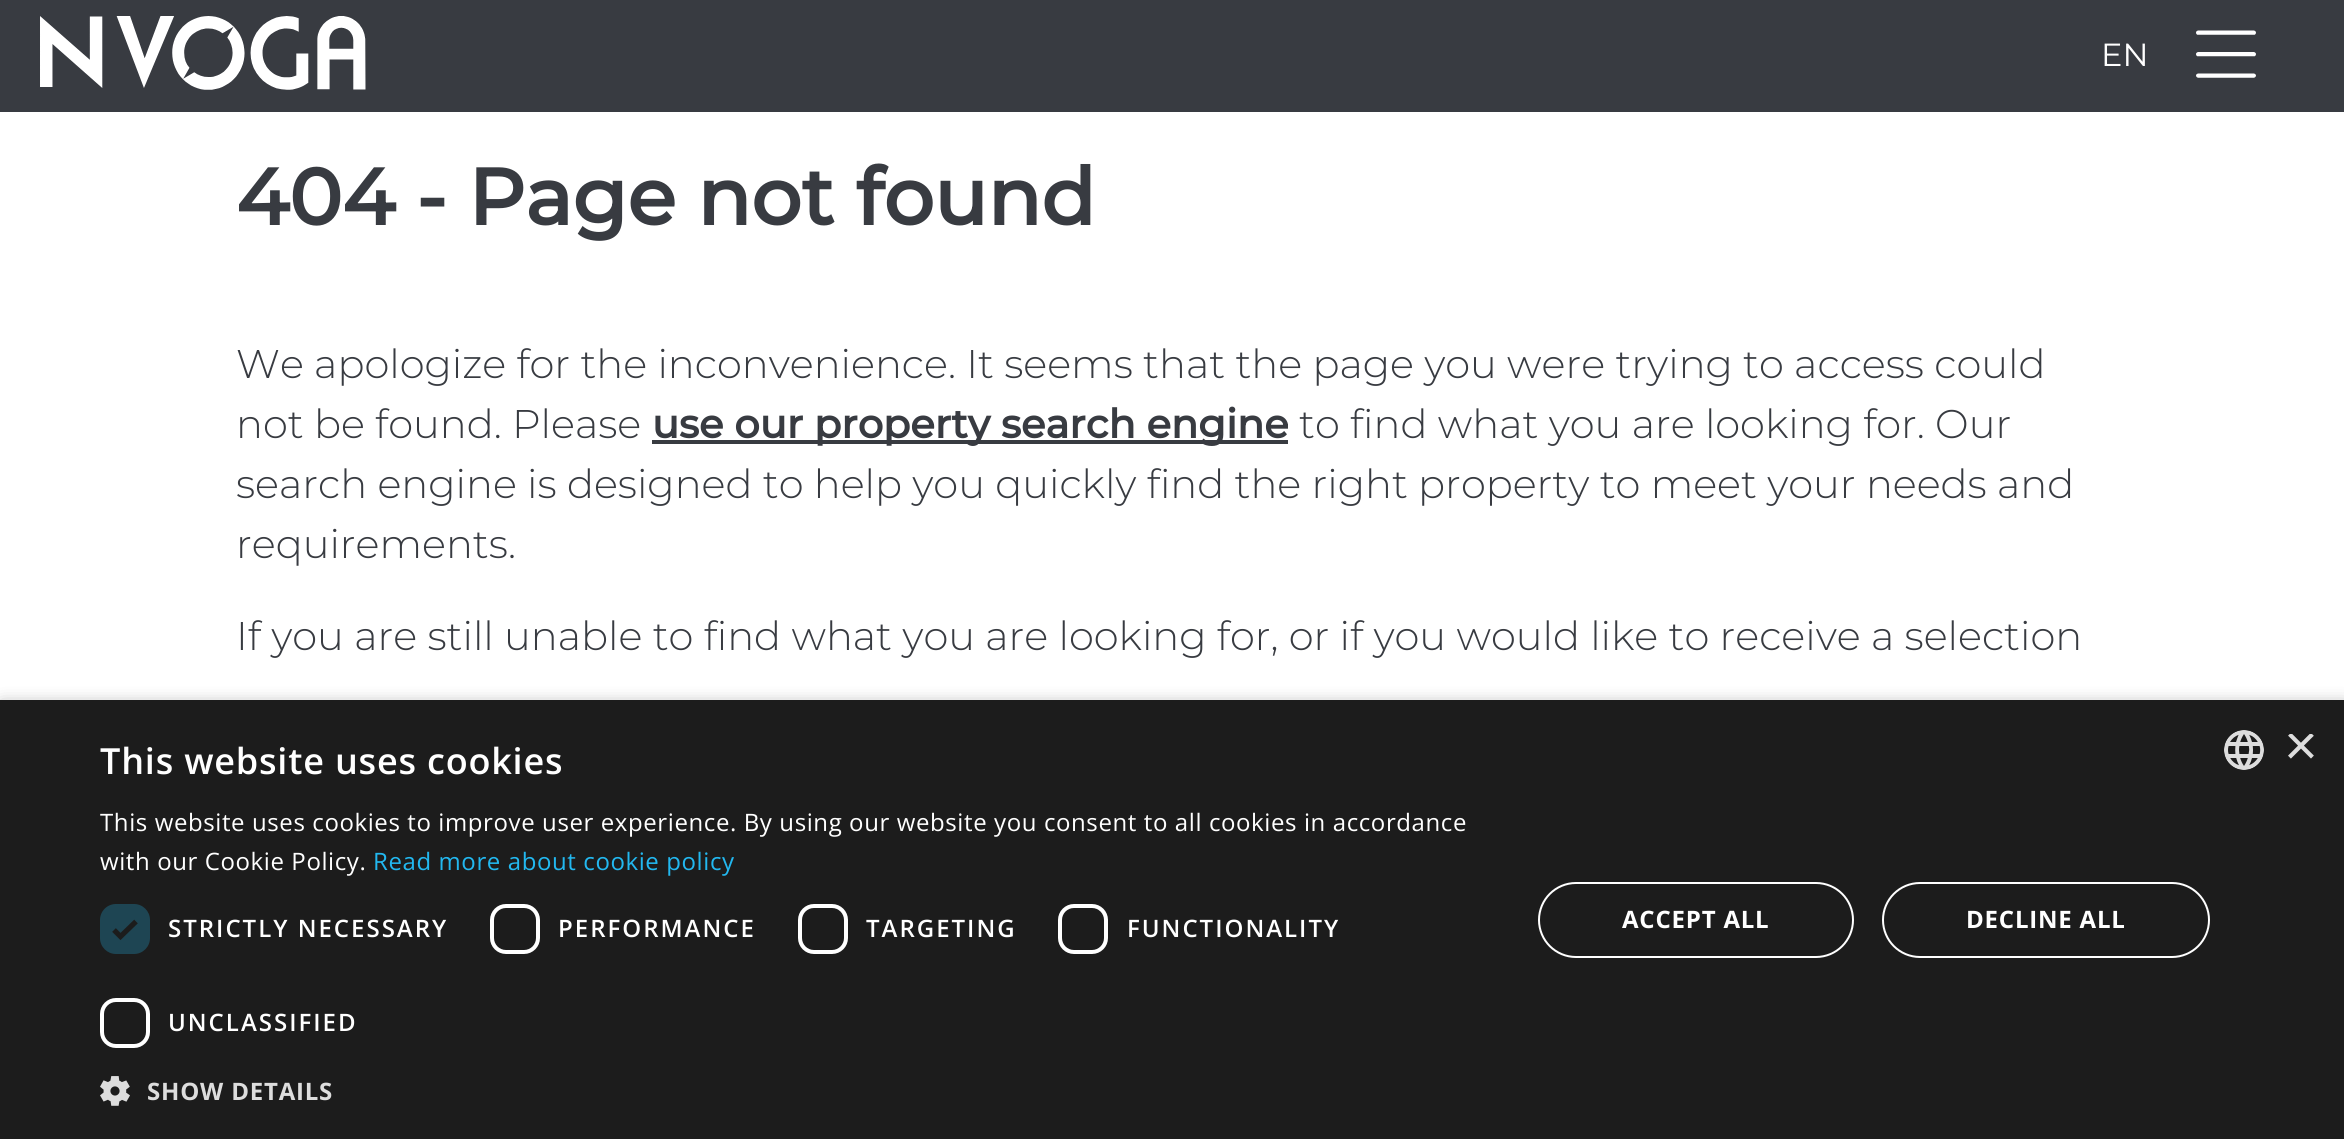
import math
import cairo


def use_color(cr, r, g, b):
  cr.set_source_rgb(r / 255, g / 255, b / 255)

def text(cr, x, y, s, family, size, color, bold=False, italic=False):
  cr.select_font_face(family, cairo.FONT_SLANT_ITALIC if italic else cairo.FONT_SLANT_NORMAL, cairo.FONT_WEIGHT_BOLD if bold else cairo.FONT_WEIGHT_NORMAL)
  cr.set_font_size(size)
  use_color(cr, *color)
  cr.move_to(x, y)
  cr.show_text(s)

def spaced_text(cr, x, y, s, letter, word):
  cr.move_to(x, y)
  for ch in s:
    cr.show_text(ch)
    cr.rel_move_to(letter + word * (ch == ' '), 0)

def box(cr, x, y, w, h, *color):
  use_color(cr, *color)
  cr.rectangle(x, y, w, h)
  cr.fill()

def round_rect(cr, x, y, w, h, r):
  cr.new_sub_path()
  for i, (u, v) in enumerate([(x + w - r, y + h - r), (x + r, y + h - r), (x + r, y + r), (x + w - r, y + r)]):
    cr.arc(u, v, r, i * math.pi / 2, (i + 1) * math.pi / 2)
  cr.close_path()

def shadow(cr, x, y, w, h, r, blur, alpha):
  cr.push_group_with_content(cairo.CONTENT_ALPHA)
  cr.set_operator(cairo.OPERATOR_SOURCE)
  for i in range(15, -16, -2):
    e = blur * i / 6
    if min(w, h) + 2 * e > 0:
      cr.set_source_rgba(0, 0, 0, alpha * math.erfc((i - 1) / 8.5) / 2)
      round_rect(cr, x - e, y - e, w + 2 * e, h + 2 * e, max(0, min(r + e + blur * .6, min(w, h) / 2 + e)))
      cr.fill()
  cr.mask(cr.pop_group())

def picture(cr, path, x, y, w, h):
  cr.save()
  cr.set_source_surface(cairo.ImageSurface.create_from_png(path), x, y)
  cr.rectangle(x, y, w, h)
  cr.fill()
  cr.restore()

def draw(cr):
  use_color(cr, 255, 255, 255)
  cr.paint()
  box(cr, 0, 0, 2344, 112, 56, 59, 65)
  picture(cr, "img_01.png", 40, 16, 326, 74)
  picture(cr, "img_02.png", 2196, 30, 60, 48)
  box(cr, 652, 440, 636, 4, 56, 59, 65)
  use_color(cr, 0, 0, 0)
  shadow(cr, 2, 704, 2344, 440, 0, 8, 0.35)
  box(cr, 0, 700, 2344, 439, 28, 28, 28)
  use_color(cr, 30, 69, 83)
  round_rect(cr, 100, 904, 50, 50, 16)
  cr.fill()
  cr.new_path()
  cr.move_to(114, 930)
  cr.line_to(120.5, 936.5)
  cr.line_to(136, 921.5)
  use_color(cr, 28, 28, 28)
  cr.set_line_width(5.2)
  cr.stroke()
  round_rect(cr, 492, 906, 46, 46, 14)
  use_color(cr, 255, 255, 255)
  cr.set_line_width(4)
  cr.stroke()
  round_rect(cr, 800, 906, 46, 46, 14)
  cr.stroke()
  round_rect(cr, 1060, 906, 46, 46, 14)
  cr.stroke()
  round_rect(cr, 102, 1000, 46, 46, 14)
  cr.stroke()
  picture(cr, "img_03.png", 100, 1076, 30, 30)
  round_rect(cr, 1539, 883, 314, 74, 37)
  cr.set_line_width(2)
  cr.stroke()
  round_rect(cr, 1883, 883, 326, 74, 37)
  cr.stroke()
  picture(cr, "img_04.png", 2224, 730, 40, 40)
  text(cr, 2101, 66, "EN", "Montserrat", 32, (255, 255, 255))
  text(cr, 236, 225, "404 - Page not found", "Montserrat", 79.25, (56, 59, 65), bold=True)
  text(cr, 236, 378, "We apologize for the inconvenience. It seems that the page you were trying to access could", "Montserrat Light", 40, (56, 59, 65))
  text(cr, 236, 438, "not be found. Please", "Montserrat Light", 40, (56, 59, 65))
  text(cr, 652, 438, "use our property search engine", "Montserrat", 40, (56, 59, 65), bold=True)
  text(cr, 1299, 438, "to find what you are looking for. Our", "Montserrat Light", 40, (56, 59, 65))
  text(cr, 236, 498, "search engine is designed to help you quickly find the right property to meet your needs and", "Montserrat Light", 40, (56, 59, 65))
  text(cr, 236, 558, "requirements.", "Montserrat Light", 40, (56, 59, 65))
  text(cr, 236, 650, "If you are still unable to find what you are looking for, or if you would like to receive a selection", "Montserrat Light", 40, (56, 59, 65))
  cr.select_font_face("Open Sans SemiBold")
  cr.set_font_size(36)
  use_color(cr, 255, 255, 255)
  spaced_text(cr, 100, 774, "This website uses cookies", 0.8, 0)
  cr.select_font_face("Open Sans")
  cr.set_font_size(24)
  spaced_text(cr, 100, 831, "This website uses cookies to improve user experience. By using our website you consent to all cookies in accordance", 0.6, 0)
  spaced_text(cr, 100, 870, "with our Cookie Policy.", 0.6, 0)
  use_color(cr, 34, 184, 240)
  spaced_text(cr, 373, 870, "Read more about cookie policy", 0.6, 0)
  cr.select_font_face("Open Sans SemiBold")
  use_color(cr, 255, 255, 255)
  spaced_text(cr, 168, 937, "STRICTLY NECESSARY", 2, 0)
  spaced_text(cr, 558, 937, "PERFORMANCE", 2, 0)
  spaced_text(cr, 866, 937, "TARGETING", 2, 0)
  spaced_text(cr, 1127, 937, "FUNCTIONALITY", 2, 0)
  spaced_text(cr, 168, 1031, "UNCLASSIFIED", 2, 0)
  cr.select_font_face("Open Sans", cairo.FONT_SLANT_NORMAL, cairo.FONT_WEIGHT_BOLD)
  use_color(cr, 221, 221, 221)
  spaced_text(cr, 147, 1100, "SHOW DETAILS", 0.8, 0)
  use_color(cr, 255, 255, 255)
  spaced_text(cr, 1622, 928, "ACCEPT ALL", 0.8, 0)
  spaced_text(cr, 1966, 928, "DECLINE ALL", 0.8, 0)
  cr.save()
  cr.rectangle(2284, 734, 30, 30)
  cr.clip()
  text(cr, 2284, 765, "×", "Liberation Sans", 58, (221, 221, 221))
  cr.restore()


surface = cairo.ImageSurface(cairo.FORMAT_RGB24, 2344, 1139)
cr = cairo.Context(surface)
options = cairo.FontOptions()
options.set_hint_metrics(cairo.HINT_METRICS_OFF)
options.set_hint_style(cairo.HINT_STYLE_NONE)
cr.set_font_options(options)
cr.set_miter_limit(4)
draw(cr)
surface.write_to_png("out.png")
